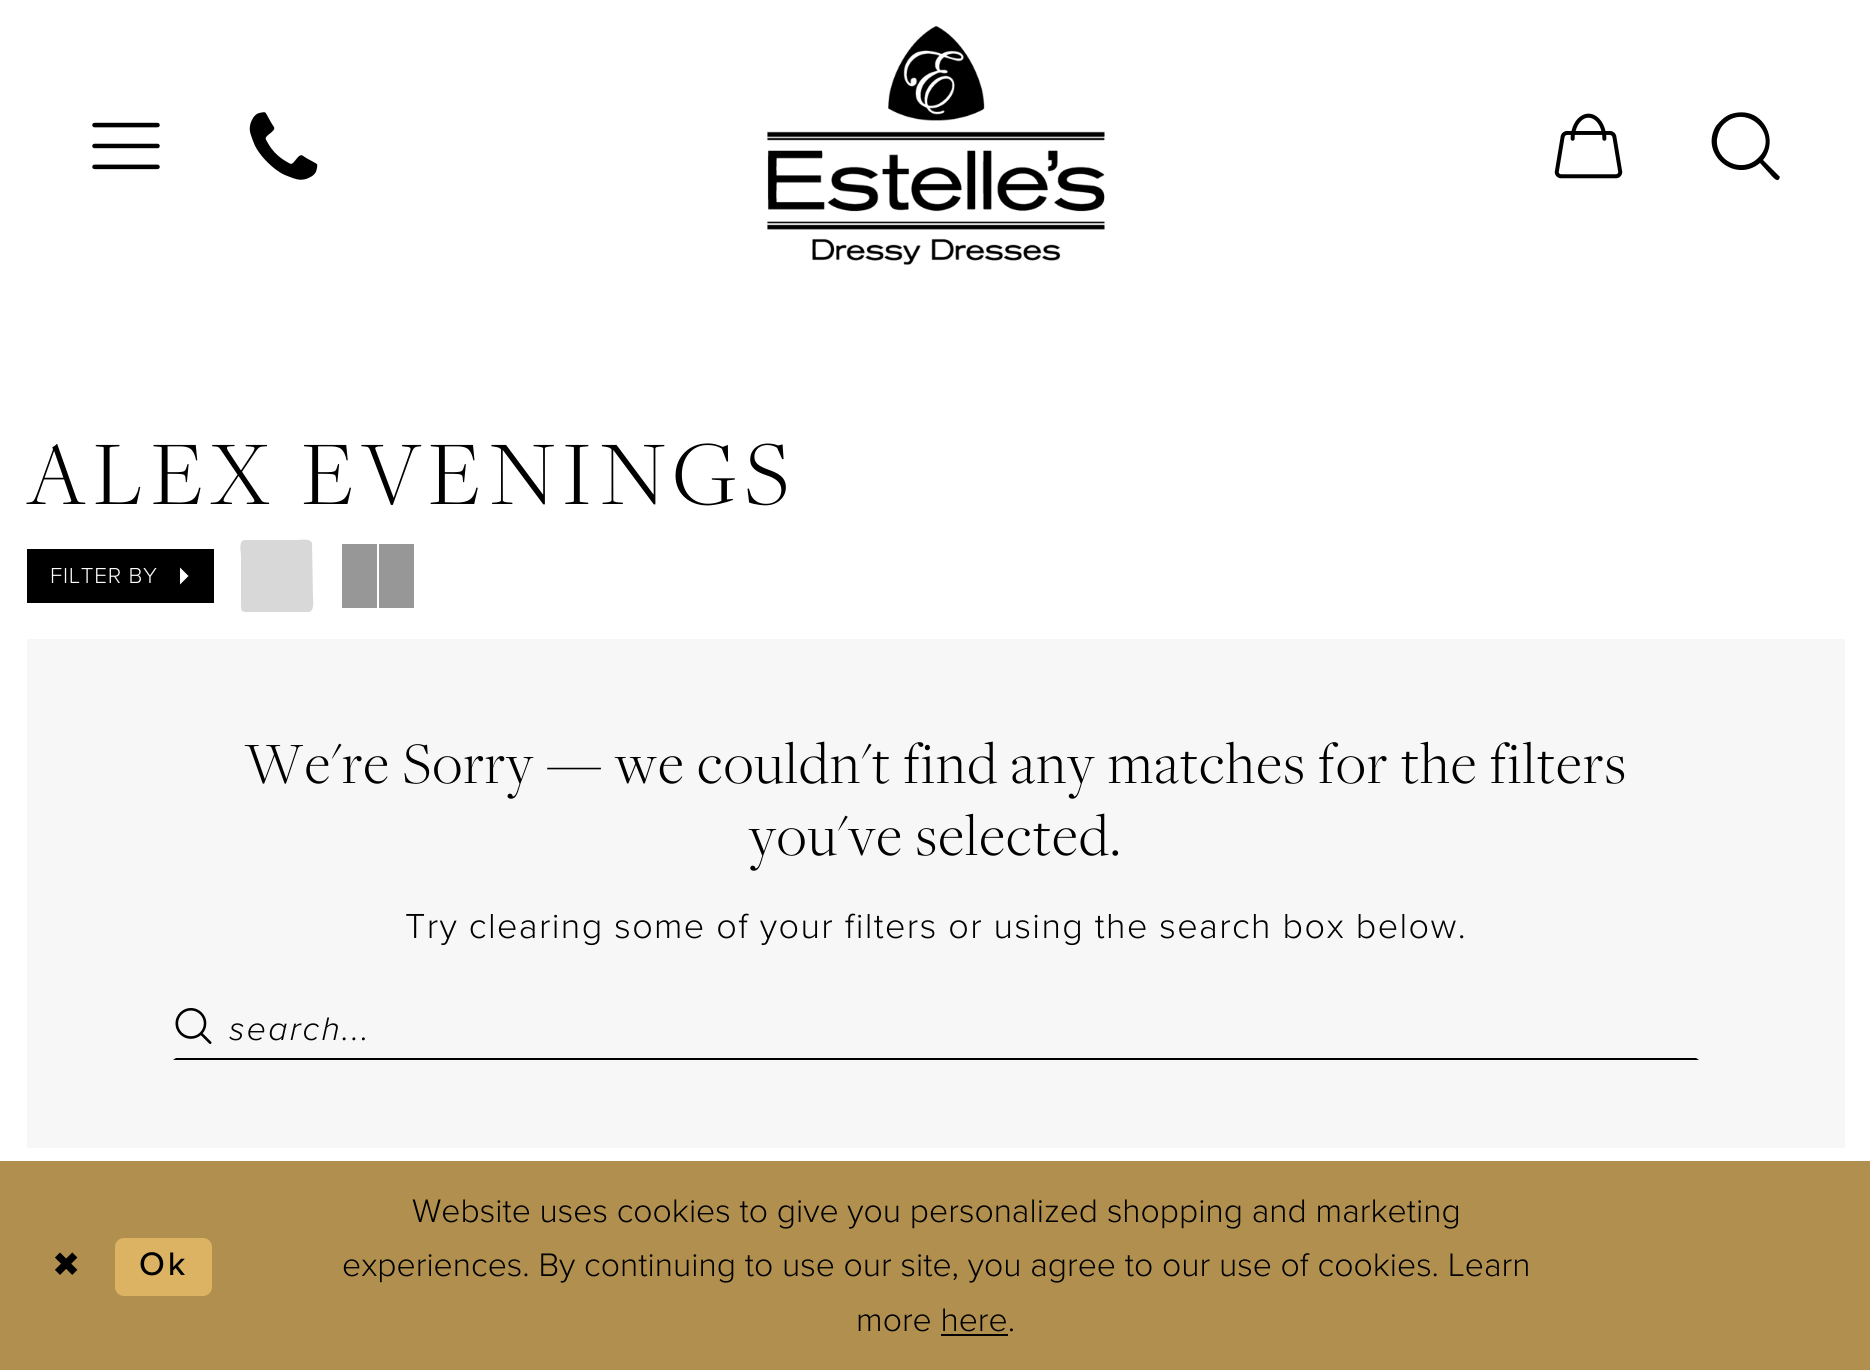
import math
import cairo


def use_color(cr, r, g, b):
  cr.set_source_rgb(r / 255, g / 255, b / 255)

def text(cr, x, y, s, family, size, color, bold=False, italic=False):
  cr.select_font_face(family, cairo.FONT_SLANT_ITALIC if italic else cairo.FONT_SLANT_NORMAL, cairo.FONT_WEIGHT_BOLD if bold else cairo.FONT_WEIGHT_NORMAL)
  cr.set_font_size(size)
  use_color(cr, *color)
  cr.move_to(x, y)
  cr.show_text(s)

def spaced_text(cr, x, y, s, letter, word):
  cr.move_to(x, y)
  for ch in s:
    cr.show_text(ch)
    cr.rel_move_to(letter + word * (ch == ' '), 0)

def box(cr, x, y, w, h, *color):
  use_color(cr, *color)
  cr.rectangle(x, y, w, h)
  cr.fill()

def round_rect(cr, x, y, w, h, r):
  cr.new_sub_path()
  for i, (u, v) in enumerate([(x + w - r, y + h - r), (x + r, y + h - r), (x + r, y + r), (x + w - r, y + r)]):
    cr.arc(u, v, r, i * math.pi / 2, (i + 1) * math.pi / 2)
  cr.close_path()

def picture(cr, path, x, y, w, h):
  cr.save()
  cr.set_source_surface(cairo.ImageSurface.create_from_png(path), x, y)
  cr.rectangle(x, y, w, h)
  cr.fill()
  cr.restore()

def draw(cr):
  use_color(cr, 255, 255, 255)
  cr.paint()
  picture(cr, "img_01.png", 92, 122, 68, 48)
  picture(cr, "img_02.png", 249, 112, 69, 68)
  picture(cr, "img_03.png", 767, 26, 338, 239)
  picture(cr, "img_04.png", 1554, 113, 69, 66)
  use_color(cr, 0, 0, 0)
  cr.new_path()
  cr.move_to(1779, 176)
  cr.line_to(1763, 160)
  cr.curve_to(1774, 147, 1771, 127, 1757, 117)
  cr.curve_to(1750, 112, 1740, 111, 1731, 114)
  cr.curve_to(1725, 116, 1720, 121, 1716, 126)
  cr.curve_to(1699, 154, 1735, 184, 1760, 163)
  cr.line_to(1770, 174)
  cr.curve_to(1771, 175, 1777, 183, 1779, 179)
  cr.curve_to(1780, 178, 1780, 176, 1779, 176)
  cr.close_path()
  cr.move_to(1758, 158)
  cr.curve_to(1742, 174, 1715, 161, 1717, 139)
  cr.curve_to(1718, 133, 1720, 128, 1724, 124)
  cr.curve_to(1747, 102, 1781, 136, 1758, 158)
  cr.close_path()
  cr.fill()
  box(cr, 27, 549, 187, 54, 0, 0, 0)
  use_color(cr, 255, 255, 255)
  cr.new_path()
  cr.move_to(180, 567.5)
  cr.line_to(188.5, 576)
  cr.line_to(180, 584.5)
  cr.close_path()
  cr.fill()
  use_color(cr, 216, 216, 216)
  cr.new_path()
  cr.move_to(245, 540)
  cr.line_to(298, 540)
  cr.curve_to(300, 540, 310, 538, 312, 543)
  cr.line_to(313, 597)
  cr.curve_to(313, 600, 315, 612, 308, 612)
  cr.line_to(256, 612)
  cr.curve_to(239, 612, 241, 614, 241, 597)
  cr.line_to(241, 555)
  cr.curve_to(241, 552, 238, 540, 245, 540)
  cr.close_path()
  cr.fill()
  use_color(cr, 151, 151, 151)
  cr.new_path()
  cr.move_to(342, 544)
  cr.line_to(377, 544)
  cr.line_to(377, 608)
  cr.line_to(342, 608)
  cr.close_path()
  cr.move_to(379, 544)
  cr.line_to(414, 544)
  cr.line_to(414, 608)
  cr.line_to(379, 608)
  cr.close_path()
  cr.fill()
  box(cr, 27, 639, 1818, 509, 247, 247, 247)
  picture(cr, "img_05.png", 175, 1008, 37, 36)
  use_color(cr, 0, 0, 0)
  cr.new_path()
  cr.move_to(1699, 1060)
  cr.line_to(173, 1060)
  cr.line_to(176, 1058)
  cr.line_to(1696, 1058)
  cr.close_path()
  cr.fill()
  box(cr, 0, 1161, 1870, 209, 177, 143, 78)
  use_color(cr, 219, 179, 99)
  round_rect(cr, 115, 1238, 97, 58, 9)
  cr.fill()
  box(cr, 941, 1334, 67, 2, 0, 0, 0)
  cr.select_font_face("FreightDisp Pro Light")
  cr.set_font_size(94.5)
  spaced_text(cr, 27, 504, "ALEX EVENINGS", 7.6, 0)
  cr.select_font_face("Proxima Nova Light")
  cr.set_font_size(22.5)
  use_color(cr, 255, 255, 255)
  spaced_text(cr, 50, 583, "FILTER BY", 0.75, 0)
  cr.select_font_face("FreightDisp Pro Light")
  cr.set_font_size(60.75)
  use_color(cr, 0, 0, 0)
  spaced_text(cr, 245, 783, "We're Sorry — we couldn't find any matches for the filters", 1.35, 0)
  spaced_text(cr, 749, 855, "you've selected.", 1.35, 0)
  cr.select_font_face("Proxima Nova Light")
  cr.set_font_size(36)
  spaced_text(cr, 405, 938, "Try clearing some of your filters or using the search box below.", 1.37, 0)
  cr.select_font_face("Proxima Nova Light", cairo.FONT_SLANT_ITALIC)
  cr.set_font_size(33.75)
  spaced_text(cr, 229, 1040, "search...", 2.25, 0)
  cr.select_font_face("DejaVu Sans")
  spaced_text(cr, 52, 1276, "✖", 3, 0)
  cr.select_font_face("Proxima Nova Medium")
  spaced_text(cr, 139, 1275, "Ok", 3, 0)
  text(cr, 412, 1222, "Website uses cookies to give you personalized shopping and marketing", "Proxima Nova Light", 33.75, (0, 0, 0))
  text(cr, 342, 1276, "experiences. By continuing to use our site, you agree to our use of cookies. Learn", "Proxima Nova Light", 33.75, (0, 0, 0))
  text(cr, 856, 1331, "more here.", "Proxima Nova Light", 33.75, (0, 0, 0))


surface = cairo.ImageSurface(cairo.FORMAT_RGB24, 1870, 1370)
cr = cairo.Context(surface)
options = cairo.FontOptions()
options.set_hint_metrics(cairo.HINT_METRICS_OFF)
options.set_hint_style(cairo.HINT_STYLE_NONE)
cr.set_font_options(options)
cr.set_miter_limit(4)
draw(cr)
surface.write_to_png("out.png")
